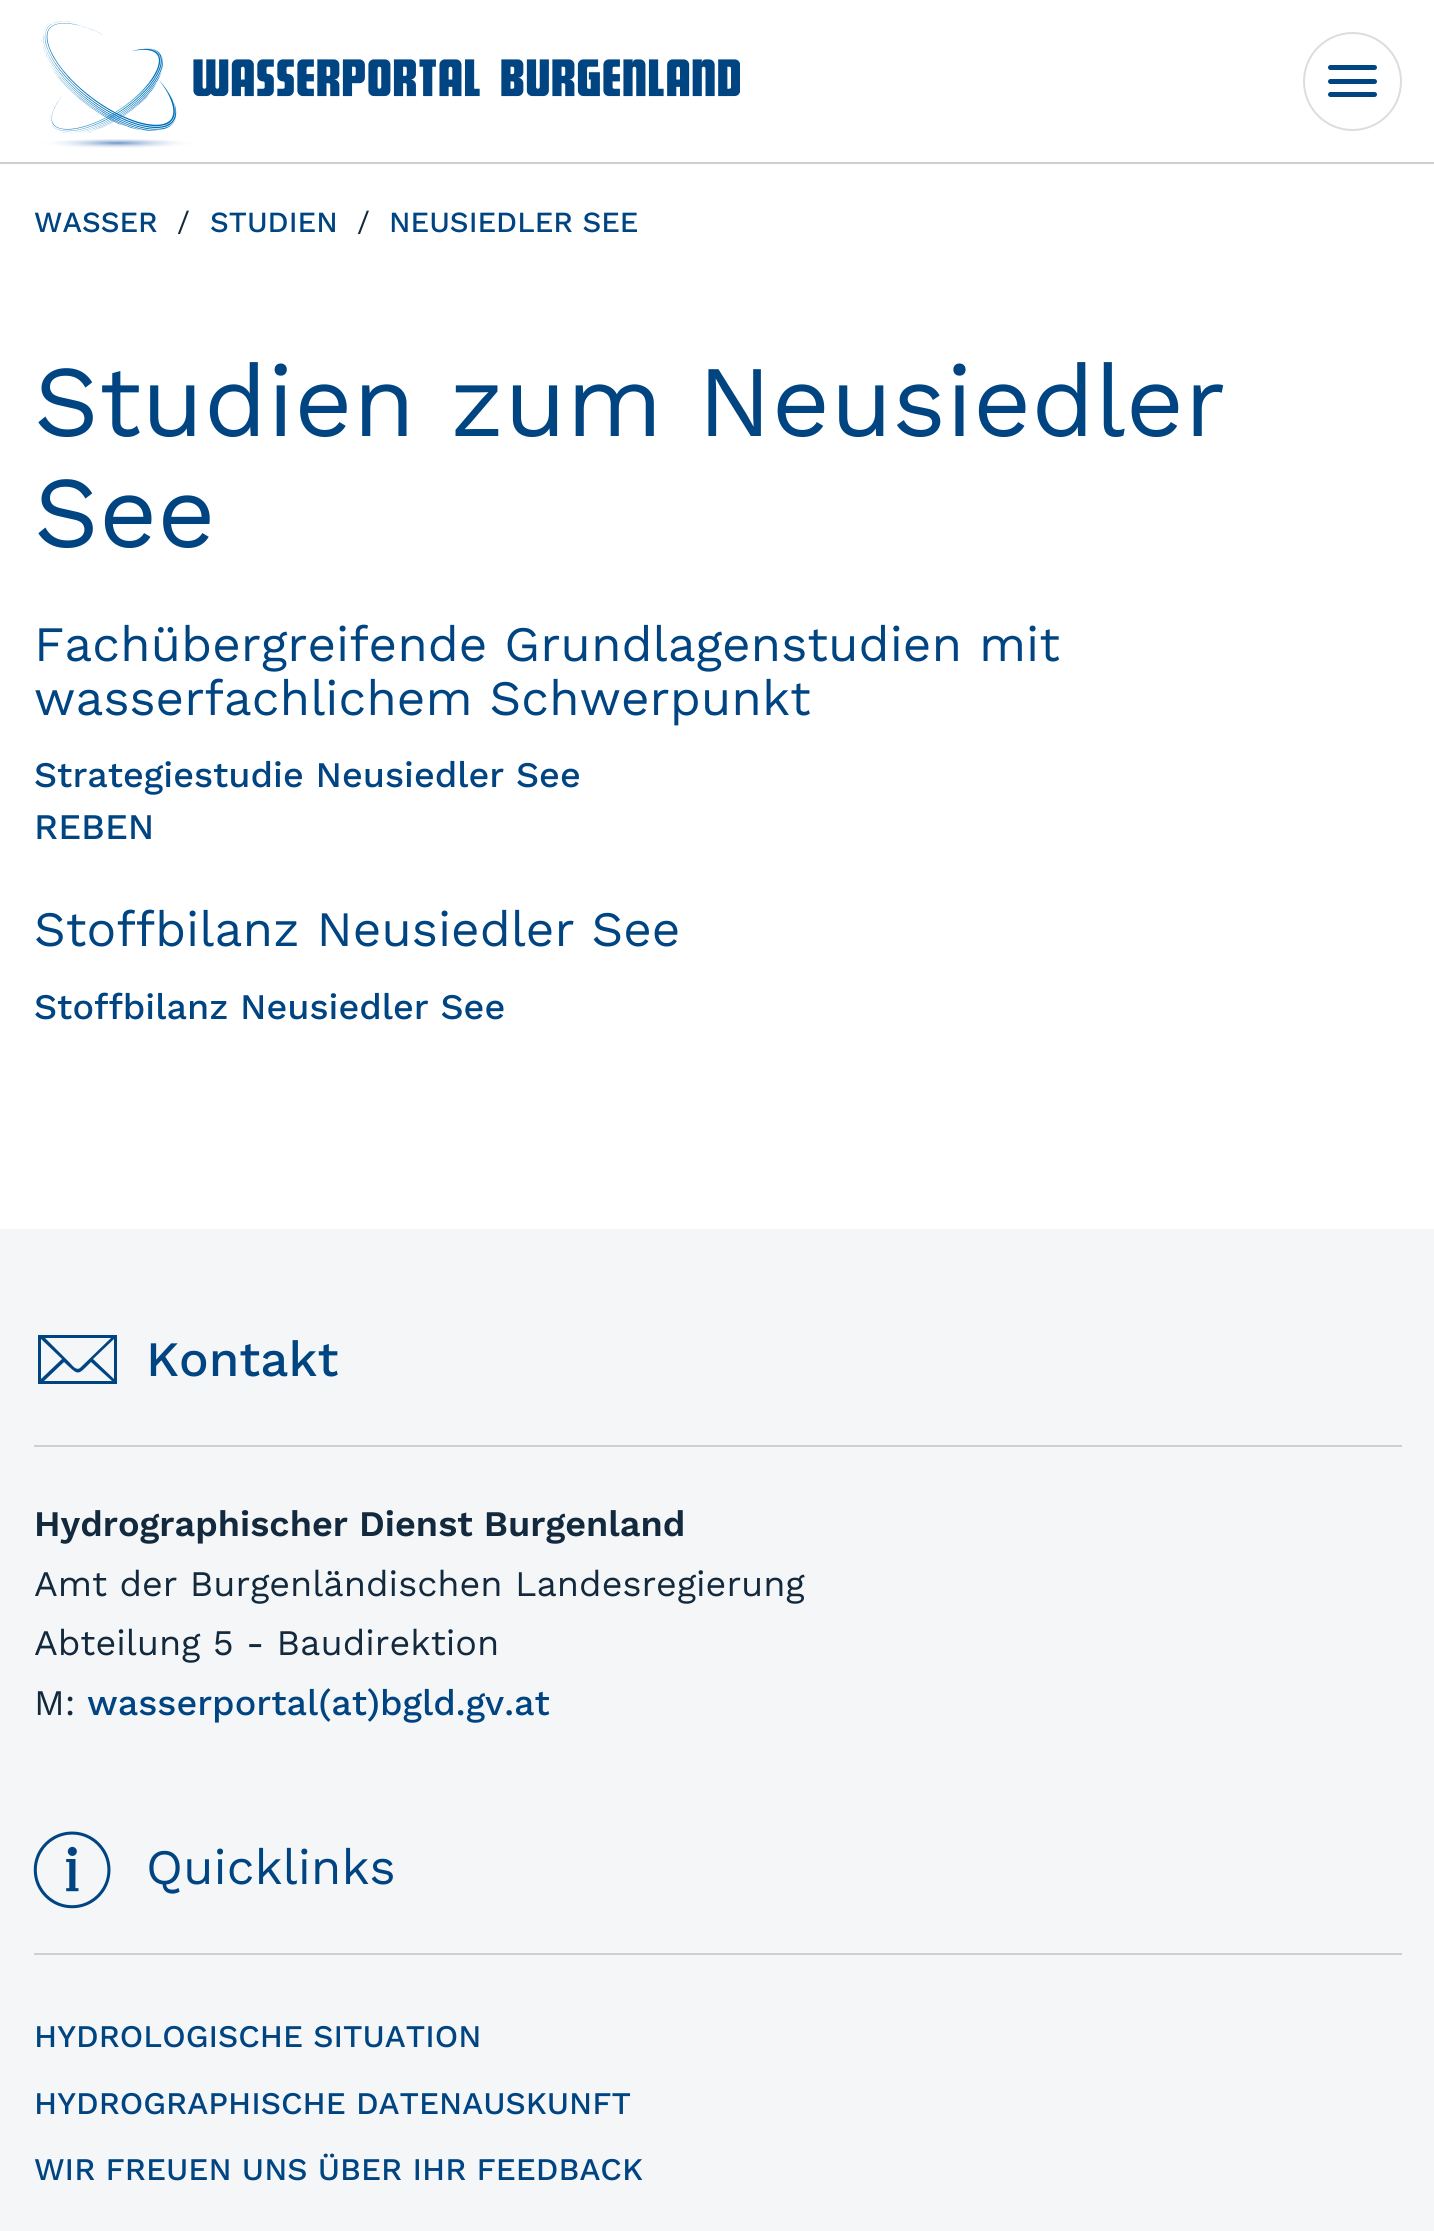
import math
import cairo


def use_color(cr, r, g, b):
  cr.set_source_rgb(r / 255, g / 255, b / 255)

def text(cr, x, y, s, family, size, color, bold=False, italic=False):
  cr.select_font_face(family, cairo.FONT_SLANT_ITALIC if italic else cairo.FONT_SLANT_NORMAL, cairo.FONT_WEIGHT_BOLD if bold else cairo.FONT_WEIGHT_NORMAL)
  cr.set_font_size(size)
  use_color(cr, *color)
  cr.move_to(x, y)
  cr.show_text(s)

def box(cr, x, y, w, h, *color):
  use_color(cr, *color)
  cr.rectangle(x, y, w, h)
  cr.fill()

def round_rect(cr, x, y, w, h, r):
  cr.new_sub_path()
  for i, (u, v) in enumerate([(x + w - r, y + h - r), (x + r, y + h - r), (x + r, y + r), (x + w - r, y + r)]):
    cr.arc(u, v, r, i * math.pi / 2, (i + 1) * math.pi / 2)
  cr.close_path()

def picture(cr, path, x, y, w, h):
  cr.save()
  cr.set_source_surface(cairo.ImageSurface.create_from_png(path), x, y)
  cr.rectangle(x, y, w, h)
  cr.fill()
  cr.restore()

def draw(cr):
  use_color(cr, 255, 255, 255)
  cr.paint()
  box(cr, 0, 162, 1434, 2, 207, 207, 207)
  box(cr, 0, 1229, 1434, 1002, 244, 246, 248)
  use_color(cr, 0, 68, 130)
  cr.new_path()
  cr.move_to(114, 1335)
  cr.line_to(38, 1335)
  cr.line_to(38, 1384)
  cr.line_to(117, 1384)
  cr.line_to(117, 1335)
  cr.close_path()
  cr.move_to(111, 1338)
  cr.line_to(80, 1368)
  cr.curve_to(76, 1371, 72, 1365, 70, 1363)
  cr.line_to(45, 1338)
  cr.close_path()
  cr.move_to(41, 1339)
  cr.line_to(62, 1359)
  cr.line_to(41, 1379)
  cr.close_path()
  cr.move_to(44, 1381)
  cr.line_to(64, 1362)
  cr.curve_to(79, 1376, 77, 1376, 91, 1362)
  cr.line_to(112, 1381)
  cr.close_path()
  cr.move_to(114, 1379)
  cr.line_to(93, 1359)
  cr.line_to(114, 1339)
  cr.close_path()
  cr.fill()
  box(cr, 34, 1445, 1368, 2, 207, 207, 207)
  picture(cr, "img_01.png", 41, 21, 699, 127)
  cr.arc(1352.5, 81.5, 48.5, 0, 2 * math.pi)
  use_color(cr, 221, 221, 221)
  cr.stroke()
  use_color(cr, 0, 68, 130)
  round_rect(cr, 1328, 65, 49, 5, 2.5)
  cr.fill()
  round_rect(cr, 1328, 79, 49, 5, 2.5)
  cr.fill()
  round_rect(cr, 1328, 92, 49, 5, 2.5)
  cr.fill()
  picture(cr, "img_02.png", 33, 1831, 78, 78)
  box(cr, 34, 1953, 1368, 2, 207, 207, 207)
  text(cr, 34, 232, "WASSER", "Work Sans Medium", 29.25, (0, 68, 130))
  text(cr, 177, 232, "/", "Work Sans", 29.25, (19, 41, 61))
  text(cr, 210, 232, "STUDIEN", "Work Sans Medium", 29.25, (0, 68, 130))
  text(cr, 357, 232, "/", "Work Sans", 29.25, (19, 41, 61))
  text(cr, 389, 232, "NEUSIEDLER SEE", "Work Sans Medium", 29.25, (0, 68, 130))
  text(cr, 34, 436, "Studien zum Neusiedler", "Work Sans", 101.25, (0, 68, 130))
  text(cr, 34, 547, "See", "Work Sans", 101.25, (0, 68, 130))
  text(cr, 34, 661, "Fachübergreifende Grundlagenstudien mit", "Work Sans", 49.5, (0, 68, 130))
  text(cr, 34, 715, "wasserfachlichem Schwerpunkt", "Work Sans", 49.5, (0, 68, 130))
  text(cr, 34, 787, "Strategiestudie Neusiedler See", "Work Sans Medium", 36, (0, 68, 130))
  text(cr, 34, 839, "REBEN", "Work Sans Medium", 36, (0, 68, 130))
  text(cr, 34, 946, "Stoffbilanz Neusiedler See", "Work Sans", 49.5, (0, 68, 130))
  text(cr, 34, 1019, "Stoffbilanz Neusiedler See", "Work Sans Medium", 36, (0, 68, 130))
  text(cr, 146, 1376, "Kontakt", "Work Sans Medium", 49.5, (0, 68, 130))
  text(cr, 34, 1536, "Hydrographischer Dienst Burgenland", "Work Sans SemiBold", 36, (19, 41, 61))
  text(cr, 34, 1596, "Amt der Burgenländischen Landesregierung", "Work Sans", 36, (19, 41, 61))
  text(cr, 34, 1655, "Abteilung 5 - Baudirektion", "Work Sans", 36, (19, 41, 61))
  text(cr, 34, 1715, "M:", "Work Sans", 36, (19, 41, 61))
  text(cr, 87, 1715, "wasserportal(at)bgld.gv.at", "Work Sans Medium", 36, (0, 68, 130))
  text(cr, 146, 1884, "Quicklinks", "Work Sans", 49.5, (0, 68, 130))
  text(cr, 34, 2047, "HYDROLOGISCHE SITUATION", "Work Sans Medium", 31.5, (0, 68, 130))
  text(cr, 34, 2114, "HYDROGRAPHISCHE DATENAUSKUNFT", "Work Sans Medium", 31.5, (0, 68, 130))
  text(cr, 34, 2180, "WIR FREUEN UNS ÜBER IHR FEEDBACK", "Work Sans Medium", 31.5, (0, 68, 130))


surface = cairo.ImageSurface(cairo.FORMAT_RGB24, 1434, 2231)
cr = cairo.Context(surface)
options = cairo.FontOptions()
options.set_hint_metrics(cairo.HINT_METRICS_OFF)
options.set_hint_style(cairo.HINT_STYLE_NONE)
cr.set_font_options(options)
cr.set_miter_limit(4)
draw(cr)
surface.write_to_png("out.png")
